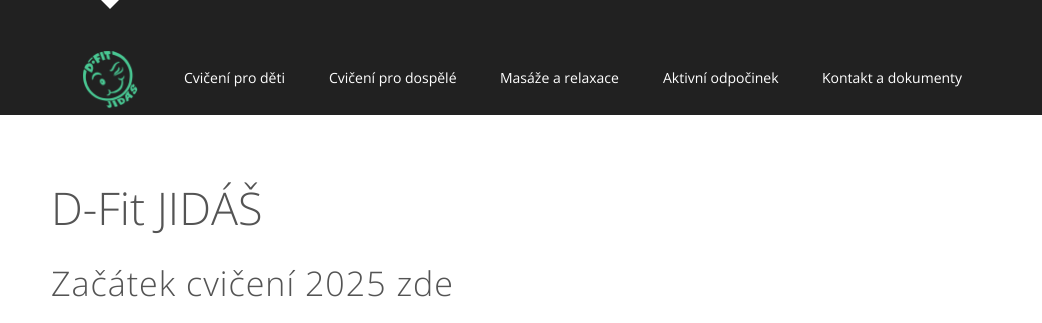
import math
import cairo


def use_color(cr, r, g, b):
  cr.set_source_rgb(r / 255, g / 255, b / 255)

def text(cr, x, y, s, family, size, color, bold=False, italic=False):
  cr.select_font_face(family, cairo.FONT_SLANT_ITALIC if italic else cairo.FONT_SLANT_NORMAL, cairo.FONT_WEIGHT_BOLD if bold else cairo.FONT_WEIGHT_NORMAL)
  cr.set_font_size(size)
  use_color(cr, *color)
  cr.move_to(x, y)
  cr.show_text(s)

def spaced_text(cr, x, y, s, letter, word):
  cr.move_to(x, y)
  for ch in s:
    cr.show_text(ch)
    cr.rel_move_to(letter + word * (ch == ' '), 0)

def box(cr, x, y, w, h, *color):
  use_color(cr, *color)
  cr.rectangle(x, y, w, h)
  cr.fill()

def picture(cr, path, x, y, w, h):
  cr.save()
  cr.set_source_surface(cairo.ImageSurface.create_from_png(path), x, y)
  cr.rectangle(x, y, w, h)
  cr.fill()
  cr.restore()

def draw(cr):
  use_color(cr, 255, 255, 255)
  cr.paint()
  box(cr, 0, 0, 1042, 115, 33, 33, 33)
  use_color(cr, 255, 255, 255)
  cr.new_path()
  cr.move_to(101, 0)
  cr.line_to(119, 0)
  cr.line_to(110, 9)
  cr.close_path()
  cr.fill()
  picture(cr, "img_01.png", 83, 51, 55, 58)
  text(cr, 184, 83, "Cvičení pro děti", "Open Sans", 14, (255, 255, 255))
  text(cr, 329, 83, "Cvičení pro dospělé", "Open Sans", 14, (255, 255, 255))
  text(cr, 500, 83, "Masáže a relaxace", "Open Sans", 14, (255, 255, 255))
  text(cr, 663, 83, "Aktivní odpočinek", "Open Sans", 14, (255, 255, 255))
  text(cr, 822, 83, "Kontakt a dokumenty", "Open Sans", 14, (255, 255, 255))
  text(cr, 51, 225, "D-Fit JIDÁŠ", "Open Sans Light", 45, (84, 84, 84))
  cr.set_font_size(34)
  spaced_text(cr, 51, 296, "Začátek cvičení 2025 zde", 1, 0)


surface = cairo.ImageSurface(cairo.FORMAT_RGB24, 1042, 323)
cr = cairo.Context(surface)
options = cairo.FontOptions()
options.set_hint_metrics(cairo.HINT_METRICS_OFF)
options.set_hint_style(cairo.HINT_STYLE_NONE)
cr.set_font_options(options)
cr.set_miter_limit(4)
draw(cr)
surface.write_to_png("out.png")
